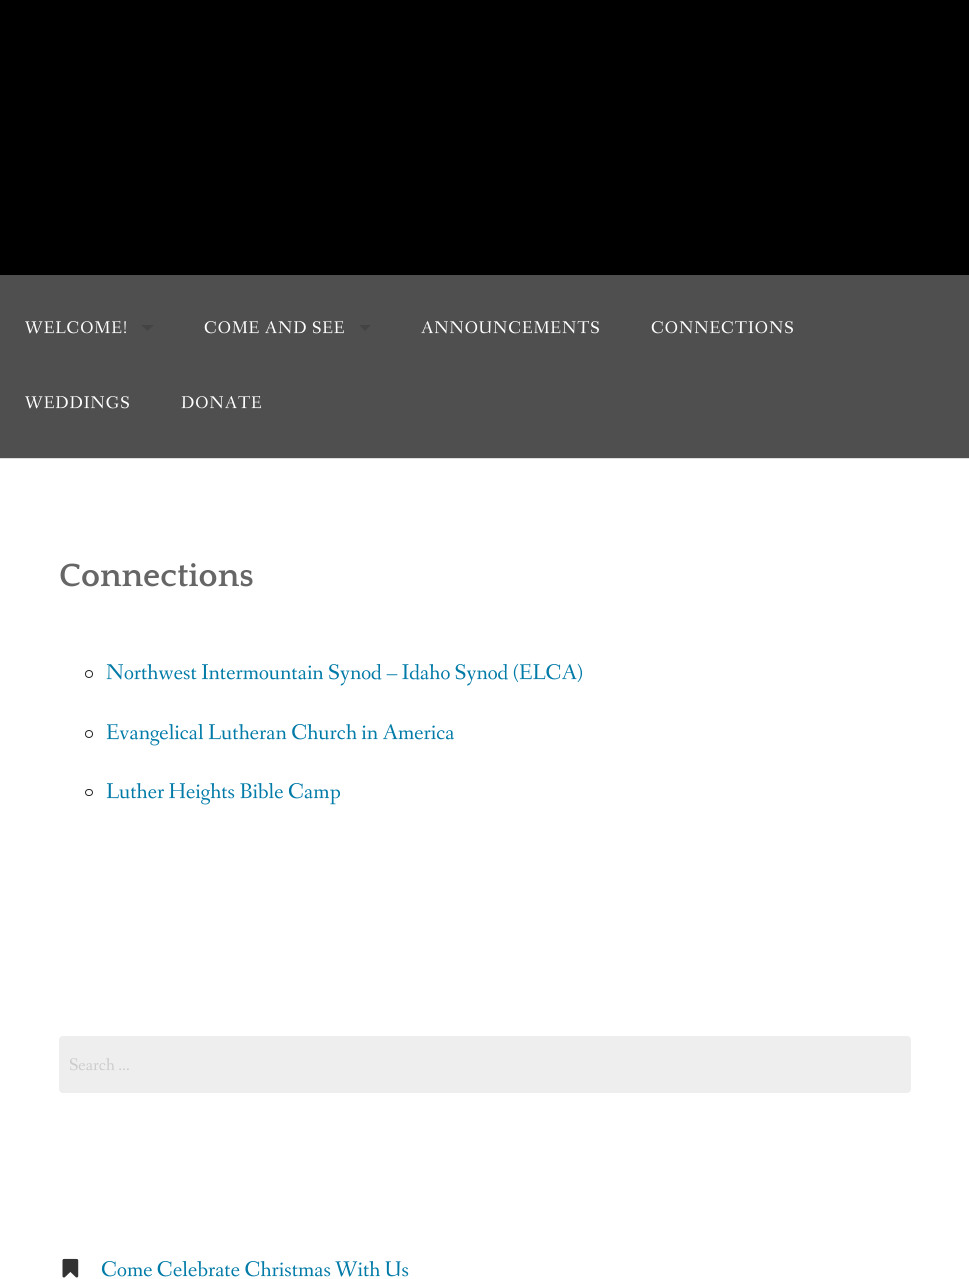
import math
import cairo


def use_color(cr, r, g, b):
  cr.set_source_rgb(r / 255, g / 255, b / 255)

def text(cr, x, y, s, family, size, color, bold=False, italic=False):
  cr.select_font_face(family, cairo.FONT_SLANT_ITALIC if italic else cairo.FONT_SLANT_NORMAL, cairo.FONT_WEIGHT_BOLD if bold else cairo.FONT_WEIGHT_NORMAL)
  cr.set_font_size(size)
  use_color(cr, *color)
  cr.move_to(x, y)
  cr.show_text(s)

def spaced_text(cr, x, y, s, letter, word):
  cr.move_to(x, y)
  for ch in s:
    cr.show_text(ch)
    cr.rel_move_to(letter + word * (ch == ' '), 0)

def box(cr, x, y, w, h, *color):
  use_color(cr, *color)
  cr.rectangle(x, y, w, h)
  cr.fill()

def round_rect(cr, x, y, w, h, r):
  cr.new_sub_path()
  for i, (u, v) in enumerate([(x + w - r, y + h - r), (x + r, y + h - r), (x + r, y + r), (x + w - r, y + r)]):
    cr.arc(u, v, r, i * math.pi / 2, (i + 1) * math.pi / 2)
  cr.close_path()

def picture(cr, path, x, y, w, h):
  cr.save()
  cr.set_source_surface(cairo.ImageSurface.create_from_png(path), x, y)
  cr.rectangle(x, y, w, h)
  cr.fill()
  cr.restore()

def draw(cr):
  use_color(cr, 0, 0, 0)
  cr.paint()
  box(cr, 0, 275, 969, 183, 79, 79, 79)
  use_color(cr, 68, 68, 68)
  cr.new_path()
  cr.move_to(141, 325)
  cr.line_to(154, 325)
  cr.line_to(147.5, 331)
  cr.close_path()
  cr.fill()
  cr.new_path()
  cr.move_to(359, 325)
  cr.line_to(371, 325)
  cr.line_to(365, 331)
  cr.close_path()
  cr.fill()
  box(cr, 0, 458, 969, 1, 221, 221, 221)
  box(cr, 0, 459, 969, 820, 255, 255, 255)
  cr.arc(89, 674, 3.5, 0, 2 * math.pi)
  use_color(cr, 34, 34, 34)
  cr.set_line_width(1)
  cr.stroke()
  cr.arc(89, 734, 3.5, 0, 2 * math.pi)
  cr.stroke()
  round_rect(cr, 85.5, 789.5, 7, 6, 3)
  cr.stroke()
  use_color(cr, 238, 238, 238)
  round_rect(cr, 59, 1036, 852, 57, 4)
  cr.fill()
  picture(cr, "img_01.png", 62, 1258, 17, 20)
  cr.select_font_face("Fanwood Text")
  cr.set_font_size(17.5)
  use_color(cr, 255, 255, 255)
  spaced_text(cr, 25, 333, "WELCOME!", 1, 0)
  spaced_text(cr, 204, 333, "COME AND SEE", 1, 0)
  spaced_text(cr, 421, 333, "ANNOUNCEMENTS", 1, 0)
  spaced_text(cr, 651, 333, "CONNECTIONS", 1, 0)
  spaced_text(cr, 25, 408, "WEDDINGS", 1, 0)
  spaced_text(cr, 181, 408, "DONATE", 1, 0)
  text(cr, 59, 586, "Connections", "Quattrocento", 33.75, (102, 102, 102), bold=True)
  text(cr, 106, 679, "Northwest Intermountain Synod – Idaho Synod (ELCA)", "Fanwood Text", 22, (0, 122, 167))
  text(cr, 106, 739, "Evangelical Lutheran Church in America", "Fanwood Text", 22, (0, 122, 167))
  text(cr, 106, 798, "Luther Heights Bible Camp", "Fanwood Text", 22, (0, 122, 167))
  text(cr, 69, 1070, "Search …", "Fanwood Text", 17.5, (204, 204, 204))
  text(cr, 101, 1276, "Come Celebrate Christmas With Us", "Fanwood Text", 22, (0, 122, 167))


surface = cairo.ImageSurface(cairo.FORMAT_RGB24, 969, 1279)
cr = cairo.Context(surface)
options = cairo.FontOptions()
options.set_hint_metrics(cairo.HINT_METRICS_OFF)
options.set_hint_style(cairo.HINT_STYLE_NONE)
cr.set_font_options(options)
cr.set_miter_limit(4)
draw(cr)
surface.write_to_png("out.png")
